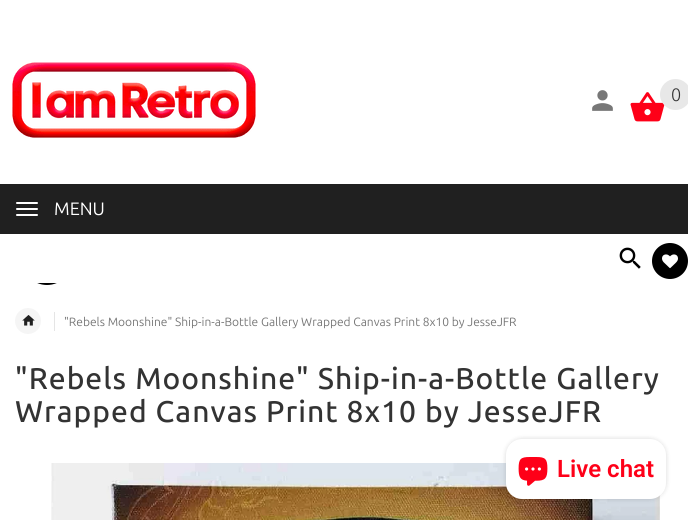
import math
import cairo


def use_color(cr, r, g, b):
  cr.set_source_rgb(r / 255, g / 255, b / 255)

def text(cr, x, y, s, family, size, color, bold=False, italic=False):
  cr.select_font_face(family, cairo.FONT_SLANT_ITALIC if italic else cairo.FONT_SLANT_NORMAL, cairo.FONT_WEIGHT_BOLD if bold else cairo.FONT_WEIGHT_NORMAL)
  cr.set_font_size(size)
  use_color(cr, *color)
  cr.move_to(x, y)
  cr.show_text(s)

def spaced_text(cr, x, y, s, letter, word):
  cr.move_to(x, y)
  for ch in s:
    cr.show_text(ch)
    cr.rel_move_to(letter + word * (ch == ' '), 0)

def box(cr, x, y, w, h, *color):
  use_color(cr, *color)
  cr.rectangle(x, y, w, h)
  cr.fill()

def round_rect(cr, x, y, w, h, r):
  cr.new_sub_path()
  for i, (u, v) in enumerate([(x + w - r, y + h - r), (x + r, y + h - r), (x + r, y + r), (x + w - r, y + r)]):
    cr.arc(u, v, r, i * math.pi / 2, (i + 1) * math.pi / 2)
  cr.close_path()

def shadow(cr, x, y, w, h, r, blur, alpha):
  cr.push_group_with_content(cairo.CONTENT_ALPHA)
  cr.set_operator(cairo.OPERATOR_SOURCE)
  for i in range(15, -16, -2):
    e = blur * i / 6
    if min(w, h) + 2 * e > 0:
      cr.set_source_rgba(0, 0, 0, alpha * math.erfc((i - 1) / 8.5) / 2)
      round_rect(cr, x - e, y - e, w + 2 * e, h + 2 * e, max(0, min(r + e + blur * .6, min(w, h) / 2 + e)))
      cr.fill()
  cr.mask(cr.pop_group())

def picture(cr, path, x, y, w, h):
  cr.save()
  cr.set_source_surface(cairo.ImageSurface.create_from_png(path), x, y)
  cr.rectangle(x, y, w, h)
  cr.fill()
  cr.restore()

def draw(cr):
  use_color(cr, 255, 255, 255)
  cr.paint()
  cr.arc(47, 260, 24, 0, 2 * math.pi)
  use_color(cr, 0, 0, 0)
  cr.stroke()
  box(cr, 22, 235, 50, 48, 255, 255, 255)
  picture(cr, "img_01.png", 12, 62, 244, 76)
  picture(cr, "img_02.png", 592, 90, 21, 21)
  picture(cr, "img_03.png", 630, 92, 35, 30)
  use_color(cr, 232, 232, 232)
  cr.arc(675.5, 94.5, 15.5, 0, 2 * math.pi)
  cr.fill()
  picture(cr, "img_04.png", 619, 247, 22, 22)
  use_color(cr, 0, 0, 0)
  cr.arc(670, 261, 18, 0, 2 * math.pi)
  cr.fill()
  picture(cr, "img_05.png", 662, 254, 16, 15)
  box(cr, 0, 184, 688, 50, 32, 32, 32)
  use_color(cr, 255, 255, 255)
  round_rect(cr, 16, 202, 22, 2, 1)
  cr.fill()
  round_rect(cr, 16, 208, 22, 2, 1)
  cr.fill()
  round_rect(cr, 16, 214, 22, 2, 1)
  cr.fill()
  use_color(cr, 245, 245, 245)
  cr.arc(28, 321, 13, 0, 2 * math.pi)
  cr.fill()
  picture(cr, "img_06.png", 22, 315, 13, 11)
  box(cr, 54, 312, 1, 19, 229, 229, 229)
  picture(cr, "img_07.png", 51, 463, 609, 57)
  use_color(cr, 0, 0, 0)
  shadow(cr, 506, 439, 160, 60, 16, 2.5, 0.15)
  use_color(cr, 255, 255, 255)
  round_rect(cr, 506, 439, 160, 60, 16)
  cr.fill()
  picture(cr, "img_08.png", 518, 457, 30, 29)
  text(cr, 671, 101, "0", "Ubuntu Light", 18, (51, 51, 51))
  text(cr, 54, 215, "MENU", "Ubuntu", 18, (255, 255, 255))
  text(cr, 64, 326, "\"Rebels Moonshine\" Ship-in-a-Bottle Gallery Wrapped Canvas Print 8x10 by JesseJFR", "Ubuntu", 12, (119, 119, 119))
  cr.select_font_face("Ubuntu Medium")
  cr.set_font_size(30)
  use_color(cr, 51, 51, 51)
  spaced_text(cr, 15, 389, "\"Rebels Moonshine\" Ship-in-a-Bottle Gallery", 1, 0)
  spaced_text(cr, 15, 422, "Wrapped Canvas Print 8x10 by JesseJFR", 1, 0)
  text(cr, 557, 477, "Live chat", "Roboto SemiBold", 24, (254, 0, 24))


surface = cairo.ImageSurface(cairo.FORMAT_RGB24, 688, 520)
cr = cairo.Context(surface)
options = cairo.FontOptions()
options.set_hint_metrics(cairo.HINT_METRICS_OFF)
options.set_hint_style(cairo.HINT_STYLE_NONE)
cr.set_font_options(options)
cr.set_miter_limit(4)
draw(cr)
surface.write_to_png("out.png")
